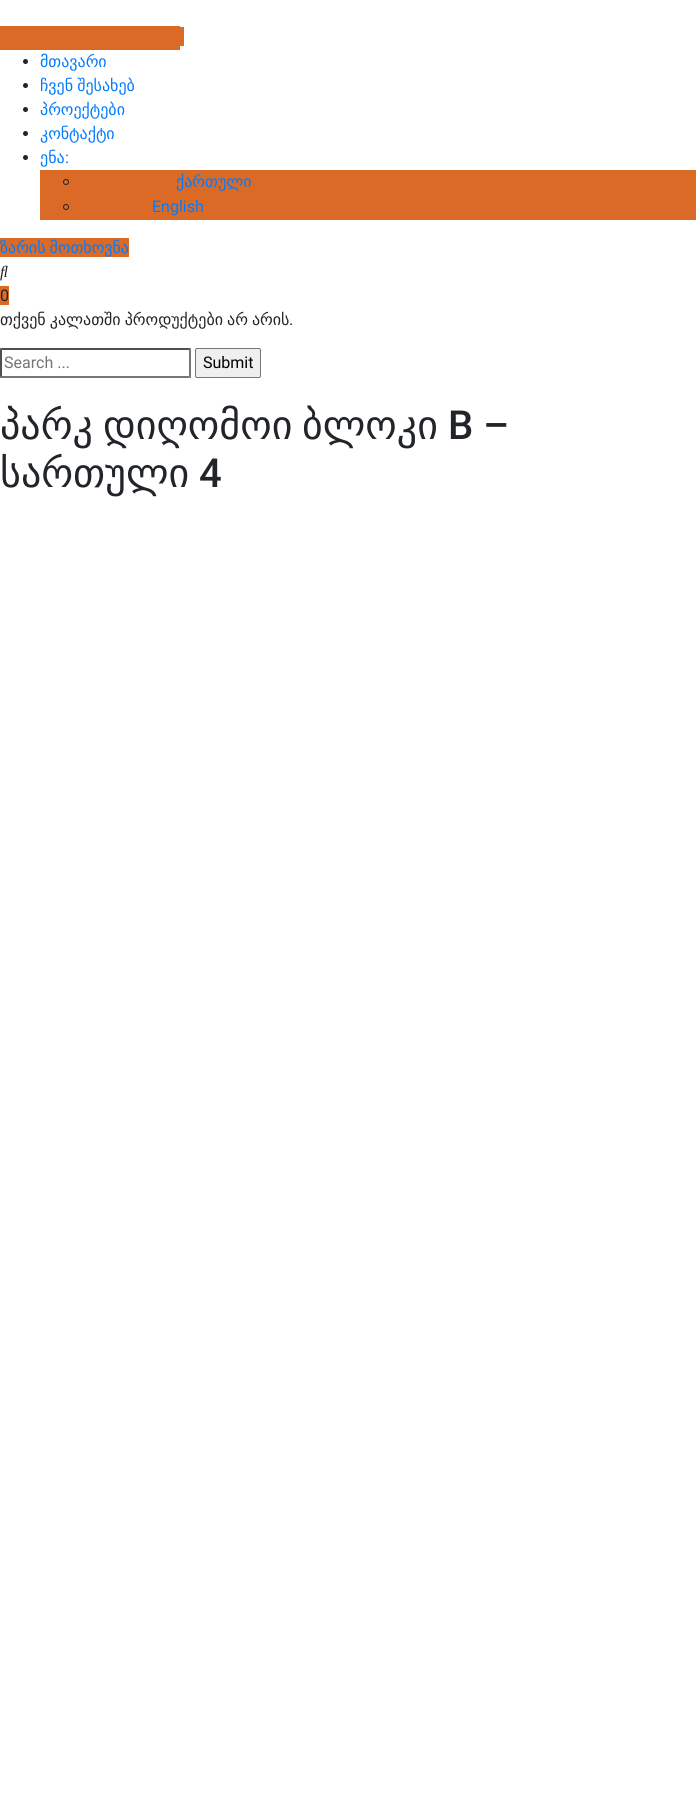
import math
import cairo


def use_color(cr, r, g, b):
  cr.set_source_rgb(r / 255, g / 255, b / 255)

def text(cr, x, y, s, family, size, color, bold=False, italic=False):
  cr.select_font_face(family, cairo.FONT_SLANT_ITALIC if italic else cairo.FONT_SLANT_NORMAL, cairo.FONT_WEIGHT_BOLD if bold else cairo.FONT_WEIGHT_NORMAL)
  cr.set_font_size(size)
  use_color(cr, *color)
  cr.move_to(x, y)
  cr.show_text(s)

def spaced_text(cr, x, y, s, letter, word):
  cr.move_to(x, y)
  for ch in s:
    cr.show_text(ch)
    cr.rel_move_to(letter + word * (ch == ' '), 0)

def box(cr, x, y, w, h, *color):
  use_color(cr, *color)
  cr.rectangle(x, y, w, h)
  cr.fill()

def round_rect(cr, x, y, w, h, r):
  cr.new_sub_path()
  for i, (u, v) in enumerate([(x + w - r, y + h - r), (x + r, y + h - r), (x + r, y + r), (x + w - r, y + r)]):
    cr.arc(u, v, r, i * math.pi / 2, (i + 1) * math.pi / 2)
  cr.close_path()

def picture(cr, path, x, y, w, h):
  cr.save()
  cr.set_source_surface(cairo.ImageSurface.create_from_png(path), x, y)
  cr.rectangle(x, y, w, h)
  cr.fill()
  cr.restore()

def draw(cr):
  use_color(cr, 255, 255, 255)
  cr.paint()
  box(cr, 0, 26, 180, 24, 219, 106, 39)
  box(cr, 180, 27, 4, 19, 219, 106, 39)
  use_color(cr, 33, 37, 41)
  cr.arc(25.5, 61.5, 2.5, 0, 2 * math.pi)
  cr.fill()
  cr.arc(25.5, 85.5, 2.5, 0, 2 * math.pi)
  cr.fill()
  cr.arc(25.5, 109.5, 2.5, 0, 2 * math.pi)
  cr.fill()
  cr.arc(25.5, 133.5, 2.5, 0, 2 * math.pi)
  cr.fill()
  cr.arc(25.5, 157.5, 2.5, 0, 2 * math.pi)
  cr.fill()
  box(cr, 40, 170, 656, 50, 219, 106, 39)
  cr.arc(66, 182, 2.5, 0, 2 * math.pi)
  use_color(cr, 33, 37, 41)
  cr.set_line_width(1)
  cr.stroke()
  cr.arc(66, 207, 2.5, 0, 2 * math.pi)
  cr.stroke()
  box(cr, 0, 238, 129, 19, 219, 106, 39)
  picture(cr, "img_01.png", 0, 265, 8, 16)
  box(cr, 0, 286, 9, 19, 219, 106, 39)
  use_color(cr, 79, 79, 79)
  cr.new_path()
  cr.move_to(0, 348)
  cr.line_to(191, 348)
  cr.line_to(189, 350)
  cr.line_to(2, 350)
  cr.close_path()
  cr.fill()
  use_color(cr, 118, 118, 118)
  cr.new_path()
  cr.move_to(191, 348)
  cr.line_to(191, 378)
  cr.line_to(189, 376)
  cr.line_to(189, 350)
  cr.close_path()
  cr.fill()
  cr.new_path()
  cr.move_to(191, 378)
  cr.line_to(0, 378)
  cr.line_to(2, 376)
  cr.line_to(189, 376)
  cr.close_path()
  cr.fill()
  use_color(cr, 79, 79, 79)
  cr.new_path()
  cr.move_to(0, 378)
  cr.line_to(0, 348)
  cr.line_to(2, 350)
  cr.line_to(2, 376)
  cr.close_path()
  cr.fill()
  use_color(cr, 239, 239, 239)
  round_rect(cr, 195.5, 348.5, 65, 29, 1.5)
  cr.fill_preserve()
  use_color(cr, 118, 118, 118)
  cr.stroke()
  text(cr, 40, 67, "მთავარი", "DejaVu Sans", 16, (0, 123, 255))
  spaced_text(cr, 40, 91, "ჩვენ შესახებ", 0, -1)
  text(cr, 40, 115, "პროექტები", "DejaVu Sans", 16, (0, 123, 255))
  text(cr, 40, 139, "კონტაქტი", "DejaVu Sans", 16, (0, 123, 255))
  text(cr, 40, 163, "ენა", "DejaVu Sans", 16, (0, 123, 255))
  text(cr, 65, 163, ":", "Roboto", 16, (0, 123, 255))
  text(cr, 176, 187, "ქართული", "DejaVu Sans", 16, (0, 123, 255))
  text(cr, 152, 212, "English", "Roboto", 16, (0, 123, 255))
  cr.select_font_face("DejaVu Sans")
  spaced_text(cr, 0, 253, "ზარის მოთხოვნა", 0, -1)
  text(cr, 0, 301, "0", "Roboto", 16, (33, 37, 41))
  cr.select_font_face("DejaVu Sans")
  spaced_text(cr, 0, 325, "თქვენ კალათში პროდუქტები არ არის", 0, -1)
  text(cr, 289, 325, ".", "Roboto", 16, (33, 37, 41))
  text(cr, 4, 368, "Search ...", "Roboto", 16, (117, 117, 117))
  text(cr, 203, 368, "Submit", "Roboto", 16, (0, 0, 0))
  text(cr, 0, 439, "პარკ", "DejaVu Sans", 40, (33, 37, 41))
  text(cr, 103, 439, "დიღომოი", "DejaVu Sans", 40, (33, 37, 41))
  text(cr, 302, 439, "ბლოკი", "DejaVu Sans", 40, (33, 37, 41))
  text(cr, 448, 439, "B –", "Roboto Medium", 40, (33, 37, 41))
  text(cr, 0, 487, "სართული", "DejaVu Sans", 40, (33, 37, 41))
  text(cr, 199, 487, "4", "Roboto Medium", 40, (33, 37, 41))


surface = cairo.ImageSurface(cairo.FORMAT_RGB24, 696, 1799)
cr = cairo.Context(surface)
options = cairo.FontOptions()
options.set_hint_metrics(cairo.HINT_METRICS_OFF)
options.set_hint_style(cairo.HINT_STYLE_NONE)
cr.set_font_options(options)
cr.set_miter_limit(4)
draw(cr)
surface.write_to_png("out.png")
